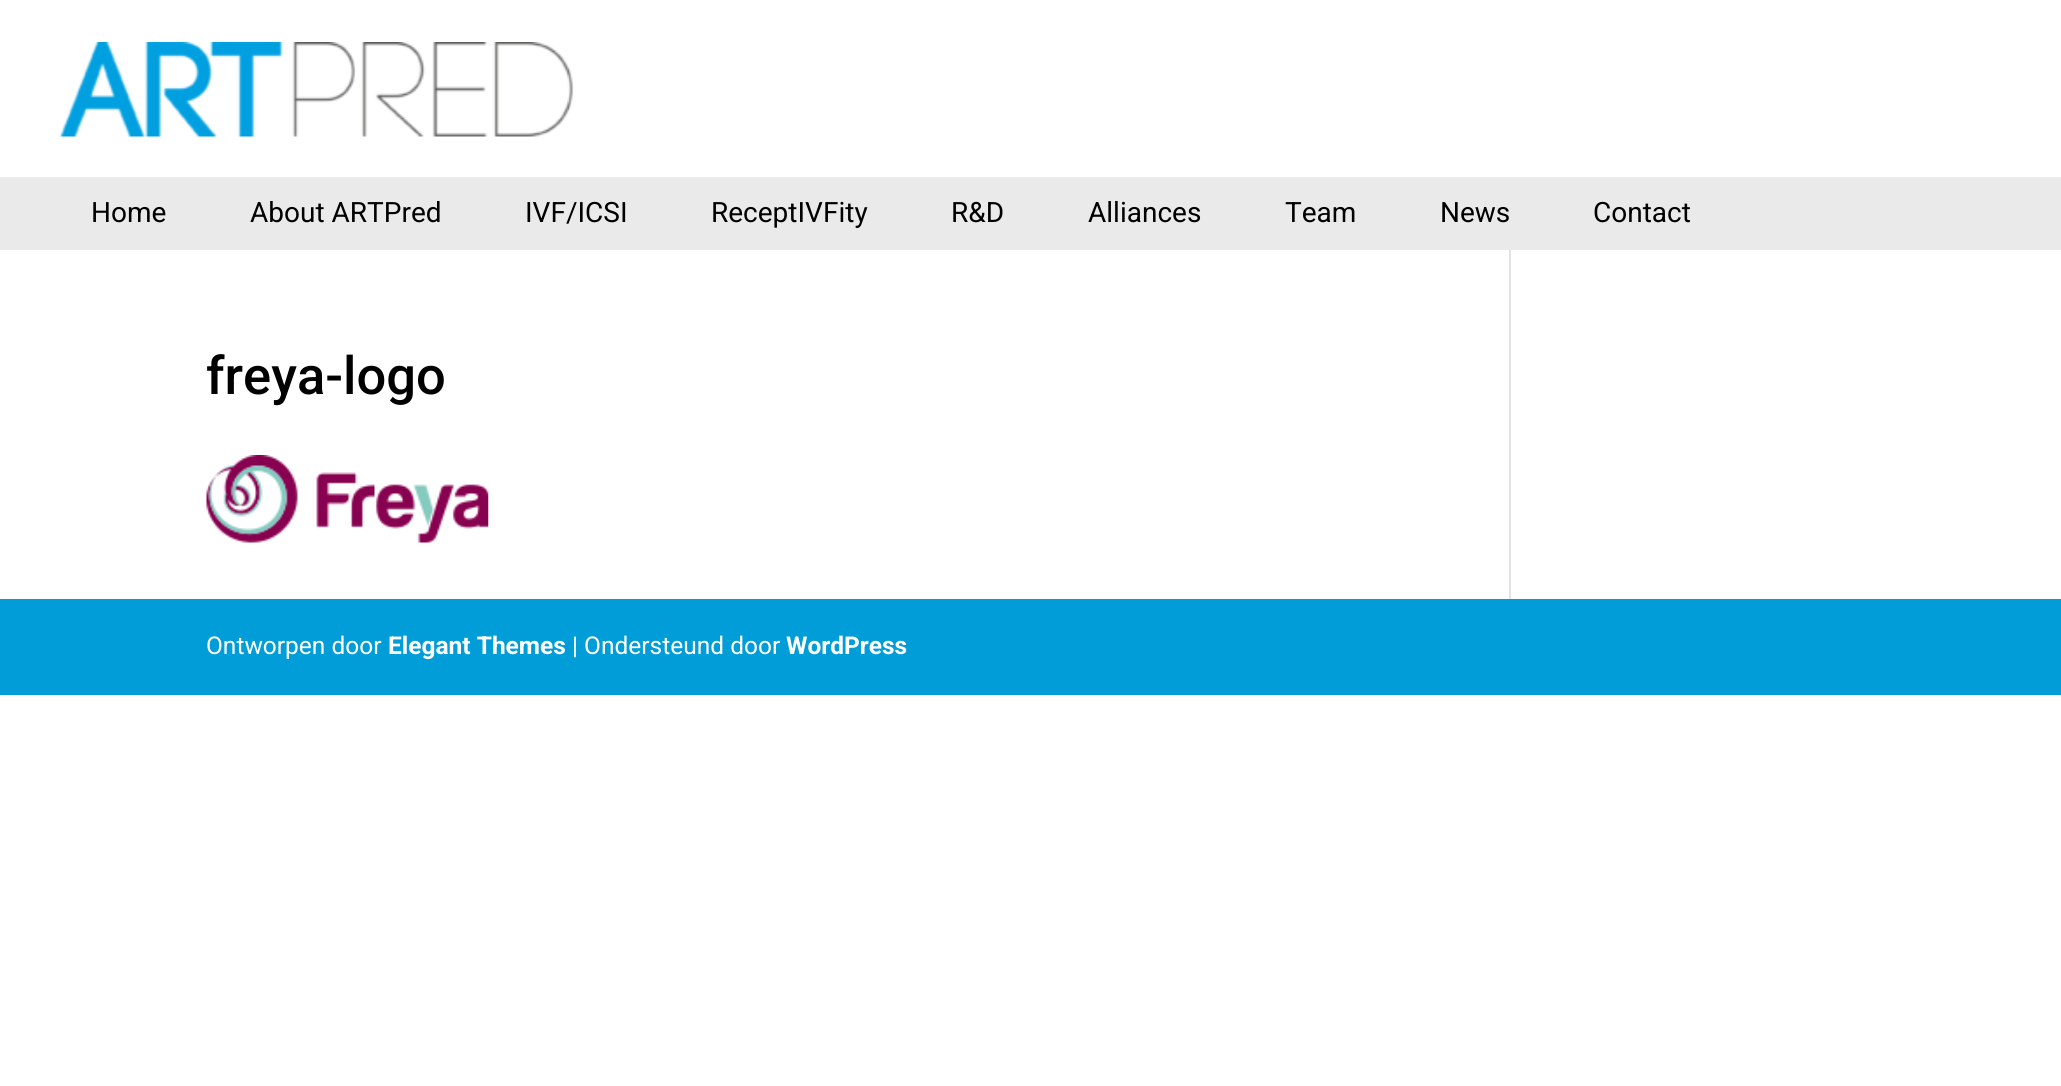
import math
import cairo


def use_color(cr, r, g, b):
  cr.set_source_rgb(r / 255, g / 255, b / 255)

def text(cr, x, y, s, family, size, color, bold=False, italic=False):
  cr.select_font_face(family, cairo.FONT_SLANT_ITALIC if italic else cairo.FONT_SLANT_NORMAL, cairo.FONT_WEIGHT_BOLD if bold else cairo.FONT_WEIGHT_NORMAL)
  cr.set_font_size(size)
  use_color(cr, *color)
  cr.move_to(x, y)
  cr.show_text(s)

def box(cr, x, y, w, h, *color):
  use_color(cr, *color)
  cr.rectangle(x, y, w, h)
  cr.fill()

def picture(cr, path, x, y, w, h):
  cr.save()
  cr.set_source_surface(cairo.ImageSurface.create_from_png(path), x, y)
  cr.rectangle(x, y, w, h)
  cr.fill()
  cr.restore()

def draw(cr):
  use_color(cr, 255, 255, 255)
  cr.paint()
  picture(cr, "img_01.png", 59, 42, 515, 95)
  box(cr, 1509, 249, 2, 350, 226, 226, 226)
  box(cr, 0, 177, 2061, 73, 234, 234, 234)
  picture(cr, "img_02.png", 206, 455, 283, 88)
  box(cr, 0, 599, 2061, 96, 0, 157, 217)
  text(cr, 91, 222, "Home", "Roboto", 28, (0, 0, 0))
  text(cr, 250, 222, "About ARTPred", "Roboto", 28, (0, 0, 0))
  text(cr, 525, 222, "IVF/ICSI", "Roboto", 28, (0, 0, 0))
  text(cr, 711, 222, "ReceptIVFity", "Roboto", 28, (0, 0, 0))
  text(cr, 951, 222, "R&D", "Roboto", 28, (0, 0, 0))
  text(cr, 1088, 222, "Alliances", "Roboto", 28, (0, 0, 0))
  text(cr, 1285, 222, "Team", "Roboto", 28, (0, 0, 0))
  text(cr, 1440, 222, "News", "Roboto", 28, (0, 0, 0))
  text(cr, 1593, 222, "Contact", "Roboto", 28, (0, 0, 0))
  text(cr, 206, 394, "freya-logo", "Roboto Medium", 52.5, (0, 0, 0))
  text(cr, 206, 654, "Ontworpen door", "Roboto", 24.5, (255, 255, 255))
  text(cr, 388, 654, "Elegant Themes", "Roboto", 24.5, (255, 255, 255), bold=True)
  text(cr, 572, 654, "| Ondersteund door", "Roboto", 24.5, (255, 255, 255))
  text(cr, 786, 654, "WordPress", "Roboto", 24.5, (255, 255, 255), bold=True)


surface = cairo.ImageSurface(cairo.FORMAT_RGB24, 2061, 1086)
cr = cairo.Context(surface)
options = cairo.FontOptions()
options.set_hint_metrics(cairo.HINT_METRICS_OFF)
options.set_hint_style(cairo.HINT_STYLE_NONE)
cr.set_font_options(options)
cr.set_miter_limit(4)
draw(cr)
surface.write_to_png("out.png")
